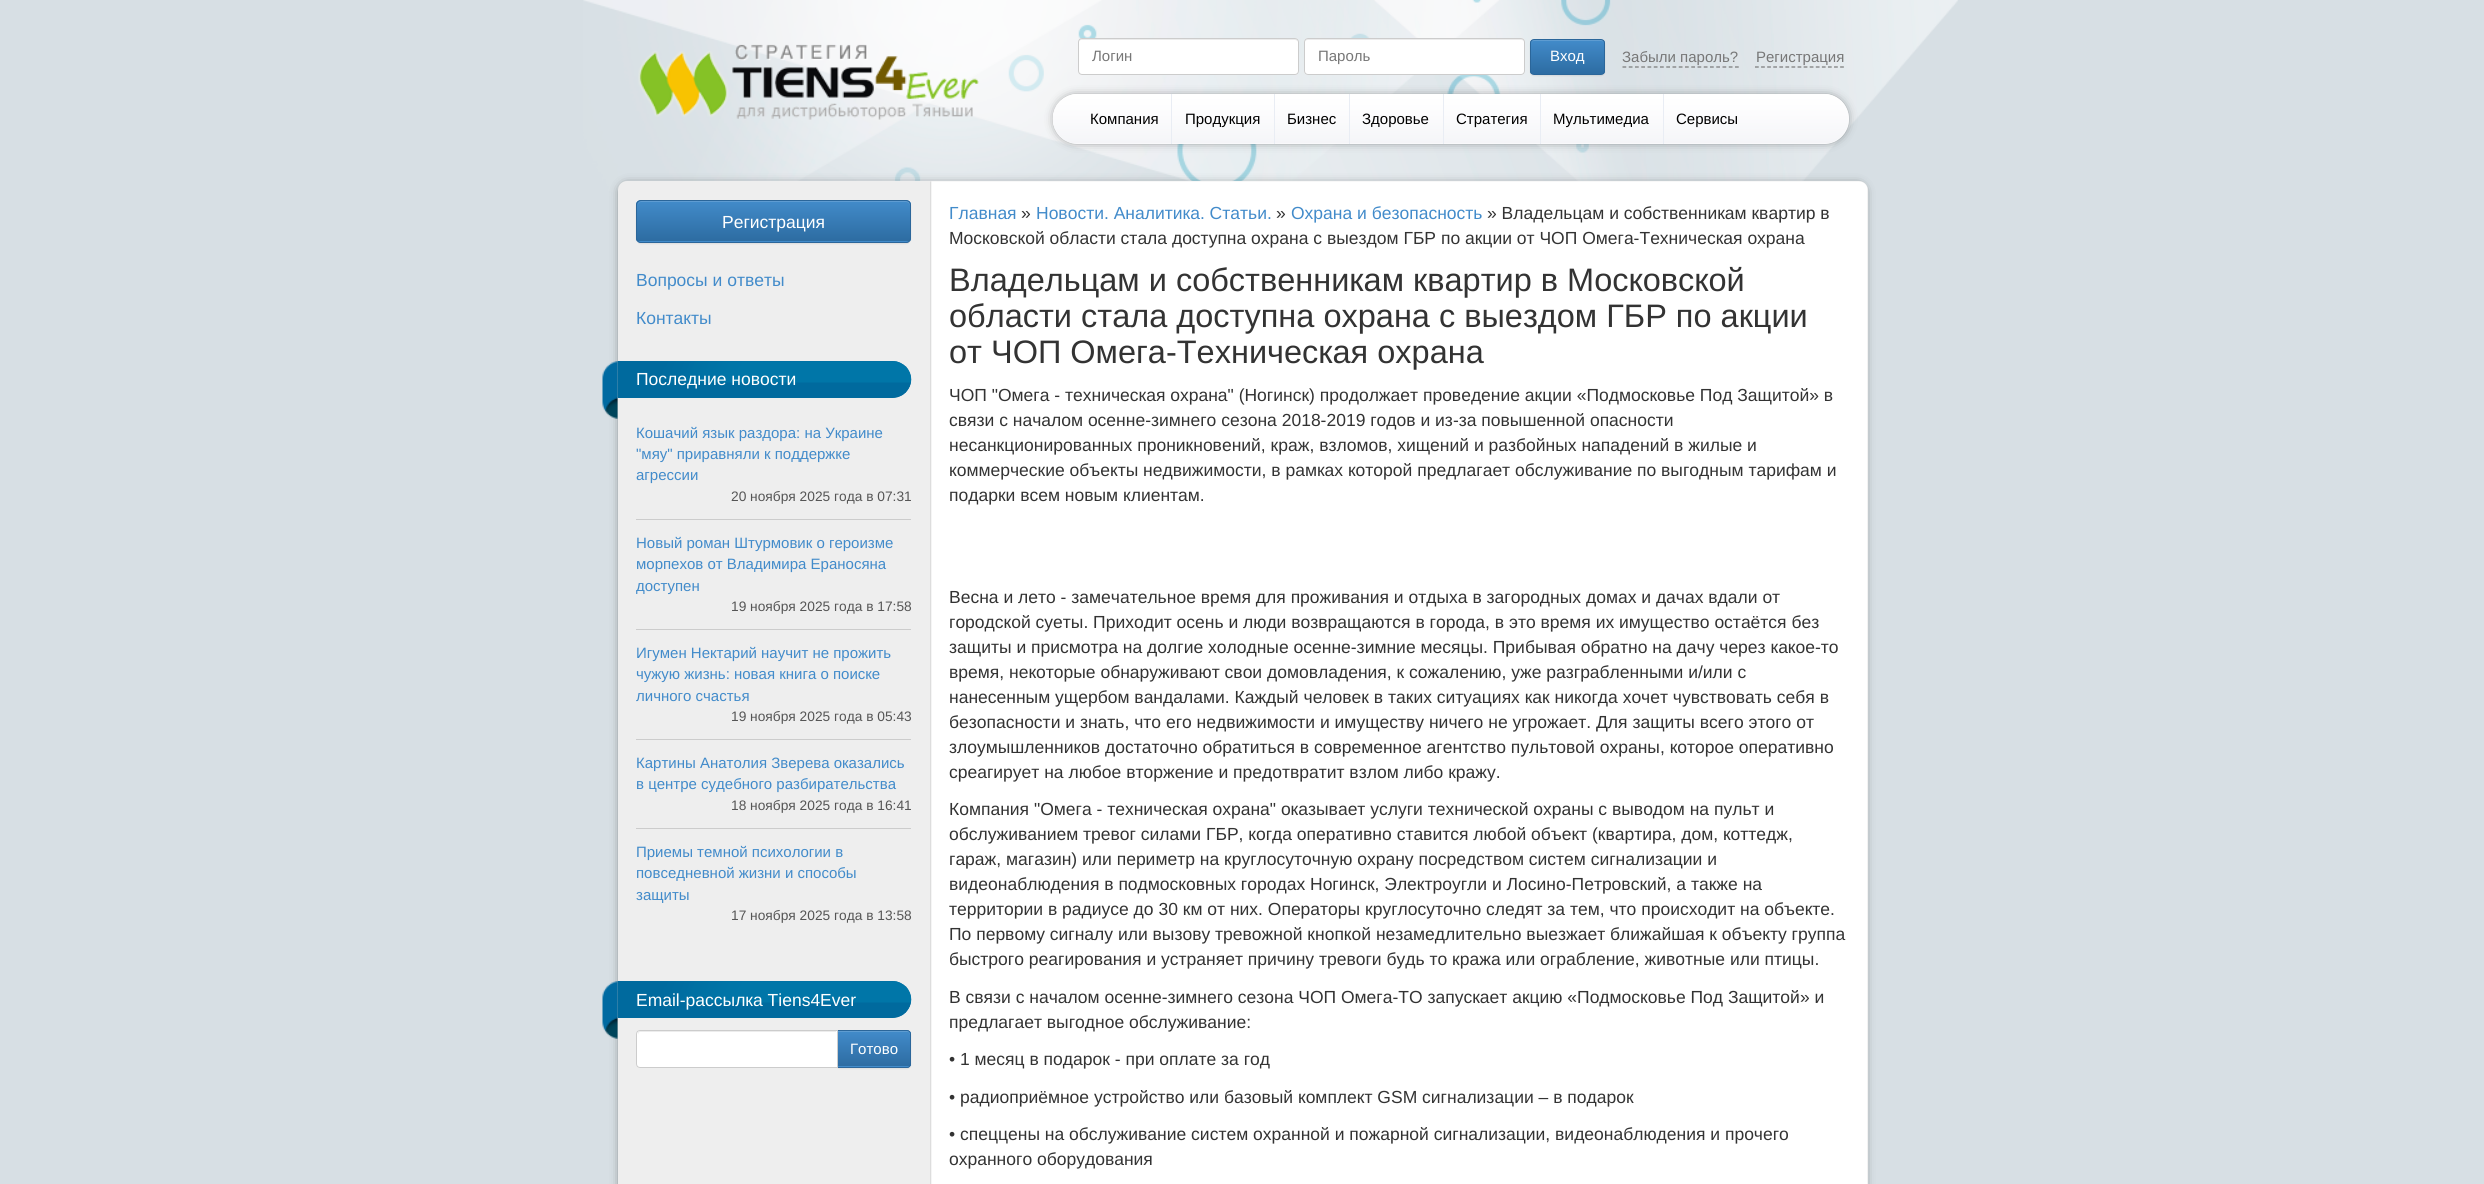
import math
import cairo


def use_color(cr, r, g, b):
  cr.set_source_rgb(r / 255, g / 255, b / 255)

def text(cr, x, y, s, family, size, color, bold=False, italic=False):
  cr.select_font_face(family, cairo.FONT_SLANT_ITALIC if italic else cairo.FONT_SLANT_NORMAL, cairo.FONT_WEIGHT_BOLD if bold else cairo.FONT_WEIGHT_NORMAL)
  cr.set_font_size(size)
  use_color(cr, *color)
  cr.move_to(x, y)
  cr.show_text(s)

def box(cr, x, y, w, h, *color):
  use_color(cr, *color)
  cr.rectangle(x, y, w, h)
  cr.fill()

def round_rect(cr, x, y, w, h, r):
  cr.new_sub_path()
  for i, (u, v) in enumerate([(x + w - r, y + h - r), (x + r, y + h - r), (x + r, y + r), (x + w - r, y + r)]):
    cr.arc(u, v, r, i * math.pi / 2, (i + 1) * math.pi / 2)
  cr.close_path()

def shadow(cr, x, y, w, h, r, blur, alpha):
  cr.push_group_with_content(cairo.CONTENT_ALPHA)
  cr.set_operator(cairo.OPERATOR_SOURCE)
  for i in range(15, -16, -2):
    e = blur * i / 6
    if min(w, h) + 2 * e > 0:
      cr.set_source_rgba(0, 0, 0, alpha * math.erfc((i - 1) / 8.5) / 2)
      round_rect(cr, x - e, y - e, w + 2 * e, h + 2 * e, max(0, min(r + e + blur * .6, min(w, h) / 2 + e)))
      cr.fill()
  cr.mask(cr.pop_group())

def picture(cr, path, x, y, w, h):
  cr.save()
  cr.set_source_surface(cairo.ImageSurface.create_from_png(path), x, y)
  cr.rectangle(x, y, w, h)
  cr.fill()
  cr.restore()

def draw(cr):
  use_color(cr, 215, 223, 228)
  cr.paint()
  picture(cr, "img_01.png", 583, 0, 1375, 334)
  picture(cr, "img_02.png", 638, 44, 341, 76)
  use_color(cr, 255, 255, 255)
  round_rect(cr, 1078, 38, 221, 37, 4)
  cr.fill()
  use_color(cr, 236, 236, 236)
  cr.new_path()
  cr.move_to(1081, 40)
  cr.line_to(1295, 40)
  cr.curve_to(1296, 40, 1298, 41, 1298, 42)
  cr.curve_to(1298, 40, 1297, 39, 1296, 39)
  cr.line_to(1082, 39)
  cr.curve_to(1080, 39, 1079, 40, 1079, 42)
  cr.curve_to(1079, 41, 1080, 40, 1081, 40)
  cr.close_path()
  cr.fill()
  round_rect(cr, 1078.5, 38.5, 220, 36, 3.5)
  use_color(cr, 204, 204, 204)
  cr.set_line_width(1)
  cr.stroke()
  use_color(cr, 255, 255, 255)
  round_rect(cr, 1304, 38, 221, 37, 4)
  cr.fill()
  use_color(cr, 236, 236, 236)
  cr.new_path()
  cr.move_to(1308, 40)
  cr.line_to(1521, 40)
  cr.curve_to(1523, 40, 1524, 41, 1524, 42)
  cr.curve_to(1524, 40, 1523, 39, 1522, 39)
  cr.line_to(1308, 39)
  cr.curve_to(1306, 39, 1305, 40, 1305, 42)
  cr.curve_to(1305, 41, 1306, 40, 1308, 40)
  cr.close_path()
  cr.fill()
  round_rect(cr, 1304.5, 38.5, 220, 36, 3.5)
  use_color(cr, 204, 204, 204)
  cr.stroke()
  use_color(cr, 0, 0, 0)
  shadow(cr, 1530, 40, 75, 36, 4, 0.5, 0.07)
  cr.save()
  round_rect(cr, 1530, 39, 75, 36, 4)
  cr.clip()
  gradient = cairo.LinearGradient(1568, 40, 1568, 74)
  gradient.add_color_stop_rgba(0, 0.259, 0.545, 0.792, 1)
  gradient.add_color_stop_rgba(1, 0.176, 0.424, 0.635, 1)
  cr.set_source(gradient)
  cr.rectangle(1530, 40, 75, 34)
  cr.fill()
  cr.restore()
  use_color(cr, 94, 156, 209)
  cr.new_path()
  cr.move_to(1534, 41)
  cr.line_to(1601, 41)
  cr.curve_to(1603, 41, 1604, 42, 1604, 44)
  cr.curve_to(1604, 37, 1596, 40, 1590, 40)
  cr.line_to(1545, 40)
  cr.curve_to(1539, 40, 1531, 37, 1531, 44)
  cr.curve_to(1531, 42, 1532, 41, 1534, 41)
  cr.close_path()
  cr.fill()
  round_rect(cr, 1530.5, 39.5, 74, 35, 3.5)
  use_color(cr, 43, 102, 154)
  cr.stroke()
  cr.new_path()
  cr.move_to(1622.5, 67)
  cr.line_to(1739, 67)
  use_color(cr, 119, 119, 119)
  cr.set_line_width(1.2)
  cr.set_dash([3.75, 2.5])
  cr.stroke()
  cr.new_path()
  cr.move_to(1755, 67)
  cr.line_to(1844, 67)
  cr.set_dash([3.75, 2.33])
  cr.stroke()
  use_color(cr, 0, 0, 0)
  shadow(cr, 1059, 100, 784, 38, 19, 6, 1)
  use_color(cr, 255, 255, 255)
  round_rect(cr, 1053, 94, 796, 50, 25)
  cr.fill()
  picture(cr, "img_03.png", 1052, 93, 797, 51)
  box(cr, 1171, 94, 1, 50, 233, 237, 244)
  box(cr, 1274, 94, 1, 50, 233, 237, 244)
  box(cr, 1349, 94, 1, 50, 233, 237, 244)
  box(cr, 1443, 94, 1, 50, 233, 237, 244)
  box(cr, 1540, 94, 1, 50, 233, 237, 244)
  box(cr, 1663, 94, 1, 50, 233, 237, 244)
  use_color(cr, 0, 0, 0)
  shadow(cr, 624, 188, 1237, 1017, 2.5, 6, 1)
  use_color(cr, 238, 238, 238)
  round_rect(cr, 618, 181, 1250, 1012, 9)
  cr.fill()
  picture(cr, "img_04.png", 930, 181, 938, 1003)
  use_color(cr, 0, 0, 0)
  shadow(cr, 636, 201, 275, 43, 5, 0.5, 0.07)
  use_color(cr, 66, 139, 202)
  round_rect(cr, 636, 200, 275, 43, 5)
  cr.fill()
  cr.save()
  round_rect(cr, 636, 200, 275, 43, 5)
  cr.clip()
  gradient = cairo.LinearGradient(774, 201, 774, 241)
  gradient.add_color_stop_rgba(0, 0.259, 0.545, 0.792, 1)
  gradient.add_color_stop_rgba(1, 0.176, 0.424, 0.635, 1)
  cr.set_source(gradient)
  cr.rectangle(636, 201, 275, 40)
  cr.fill()
  cr.restore()
  use_color(cr, 94, 156, 210)
  cr.new_path()
  cr.move_to(641, 202)
  cr.line_to(906, 202)
  cr.curve_to(908, 202, 910, 204, 910, 206)
  cr.curve_to(910, 203, 909, 201, 906, 201)
  cr.line_to(642, 201)
  cr.curve_to(639, 201, 638, 203, 638, 206)
  cr.curve_to(638, 204, 639, 202, 641, 202)
  cr.close_path()
  cr.fill()
  round_rect(cr, 636.5, 200.5, 274, 42, 4.5)
  use_color(cr, 43, 102, 154)
  cr.set_line_width(1)
  cr.set_dash([])
  cr.stroke()
  use_color(cr, 0, 106, 158)
  cr.new_path()
  cr.move_to(618, 361)
  cr.line_to(892.5, 361)
  cr.curve_to(902.5, 361, 911, 369.5, 911, 379.5)
  cr.curve_to(911, 389.5, 902.5, 398, 892.5, 398)
  cr.line_to(618, 398)
  cr.close_path()
  cr.fill()
  picture(cr, "img_05.png", 617, 361, 295, 37)
  picture(cr, "img_06.png", 602, 361, 16, 58)
  box(cr, 636, 519, 275, 1, 204, 204, 204)
  box(cr, 636, 629, 275, 1, 204, 204, 204)
  box(cr, 636, 739, 275, 1, 204, 204, 204)
  box(cr, 636, 828, 275, 1, 204, 204, 204)
  use_color(cr, 0, 106, 158)
  cr.new_path()
  cr.move_to(618, 981)
  cr.line_to(892.5, 981)
  cr.curve_to(902.5, 981, 911, 989.5, 911, 999.5)
  cr.curve_to(911, 1009.5, 902.5, 1018, 892.5, 1018)
  cr.line_to(618, 1018)
  cr.close_path()
  cr.fill()
  picture(cr, "img_05.png", 617, 981, 295, 37)
  picture(cr, "img_06.png", 602, 981, 16, 58)
  use_color(cr, 0, 0, 0)
  shadow(cr, 836, 1031, 75, 38, 4, 0.5, 0.07)
  use_color(cr, 66, 139, 202)
  cr.new_path()
  cr.move_to(836, 1030)
  cr.line_to(907, 1030)
  cr.curve_to(909, 1030, 911, 1032, 911, 1034)
  cr.line_to(911, 1064)
  cr.curve_to(911, 1066, 909, 1068, 907, 1068)
  cr.line_to(836, 1068)
  cr.close_path()
  cr.fill()
  cr.save()
  cr.new_path()
  cr.move_to(836, 1030)
  cr.line_to(907, 1030)
  cr.curve_to(909, 1030, 911, 1032, 911, 1034)
  cr.line_to(911, 1064)
  cr.curve_to(911, 1066, 909, 1068, 907, 1068)
  cr.line_to(836, 1068)
  cr.close_path()
  cr.clip()
  gradient = cairo.LinearGradient(874, 1031, 874, 1066)
  gradient.add_color_stop_rgba(0, 0.259, 0.545, 0.792, 1)
  gradient.add_color_stop_rgba(1, 0.176, 0.424, 0.635, 1)
  cr.set_source(gradient)
  cr.rectangle(838, 1031, 73, 35)
  cr.fill()
  cr.restore()
  use_color(cr, 94, 156, 209)
  cr.new_path()
  cr.move_to(838, 1032)
  cr.line_to(908, 1032)
  cr.curve_to(909, 1032, 910, 1034, 910, 1035)
  cr.line_to(910, 1034)
  cr.curve_to(910, 1032, 909, 1031, 908, 1031)
  cr.line_to(838, 1031)
  cr.close_path()
  cr.fill()
  cr.new_path()
  cr.move_to(836.5, 1030.5)
  cr.line_to(907, 1030.5)
  cr.curve_to(909, 1030.5, 910.5, 1032, 910.5, 1034)
  cr.line_to(910.5, 1064)
  cr.curve_to(910.5, 1066, 909, 1067.5, 907, 1067.5)
  cr.line_to(836.5, 1067.5)
  cr.close_path()
  use_color(cr, 43, 102, 154)
  cr.stroke()
  use_color(cr, 255, 255, 255)
  cr.new_path()
  cr.move_to(640, 1030)
  cr.line_to(838, 1030)
  cr.line_to(838, 1068)
  cr.line_to(640, 1068)
  cr.curve_to(638, 1068, 636, 1066, 636, 1064)
  cr.line_to(636, 1034)
  cr.curve_to(636, 1032, 638, 1030, 640, 1030)
  cr.close_path()
  cr.fill()
  use_color(cr, 236, 236, 236)
  cr.new_path()
  cr.move_to(640, 1032)
  cr.line_to(836, 1032)
  cr.line_to(836, 1031)
  cr.line_to(640, 1031)
  cr.curve_to(638, 1031, 638, 1033, 638, 1035)
  cr.curve_to(638, 1034, 639, 1032, 640, 1032)
  cr.close_path()
  cr.fill()
  cr.new_path()
  cr.move_to(640, 1030.5)
  cr.line_to(837.5, 1030.5)
  cr.line_to(837.5, 1067.5)
  cr.line_to(640, 1067.5)
  cr.curve_to(638, 1067.5, 636.5, 1066, 636.5, 1064)
  cr.line_to(636.5, 1034)
  cr.curve_to(636.5, 1032, 638, 1030.5, 640, 1030.5)
  cr.close_path()
  use_color(cr, 204, 204, 204)
  cr.stroke()
  text(cr, 1092, 61, "Логин", "Liberation Sans", 15, (119, 119, 119))
  text(cr, 1318, 61, "Пароль", "Liberation Sans", 15, (119, 119, 119))
  text(cr, 1550, 61, "Вход", "Liberation Sans", 15, (255, 255, 255))
  text(cr, 1622, 62, "Забыли пароль?", "Liberation Sans", 15, (119, 119, 119))
  text(cr, 1756, 62, "Регистрация", "Liberation Sans", 15, (119, 119, 119))
  text(cr, 1090, 124, "Компания", "Liberation Sans", 15, (0, 0, 0))
  text(cr, 1185, 124, "Продукция", "Liberation Sans", 15, (0, 0, 0))
  text(cr, 1287, 124, "Бизнес", "Liberation Sans", 15, (0, 0, 0))
  text(cr, 1362, 124, "Здоровье", "Liberation Sans", 15, (0, 0, 0))
  text(cr, 1456, 124, "Стратегия", "Liberation Sans", 15, (0, 0, 0))
  text(cr, 1553, 124, "Мультимедиа", "Liberation Sans", 15, (0, 0, 0))
  text(cr, 1676, 124, "Сервисы", "Liberation Sans", 15, (0, 0, 0))
  text(cr, 722, 228, "Регистрация", "Liberation Sans", 17.5, (255, 255, 255))
  text(cr, 636, 286, "Вопросы и ответы", "Liberation Sans", 17.5, (66, 139, 202))
  text(cr, 636, 324, "Контакты", "Liberation Sans", 17.5, (66, 139, 202))
  text(cr, 636, 385, "Последние новости", "Liberation Sans", 17.5, (255, 255, 255))
  text(cr, 636, 438, "Кошачий язык раздора: на Украине", "Liberation Sans", 15, (66, 139, 202))
  text(cr, 636, 459, "\"мяу\" приравняли к поддержке", "Liberation Sans", 15, (66, 139, 202))
  text(cr, 636, 480, "агрессии", "Liberation Sans", 15, (66, 139, 202))
  text(cr, 731, 501, "20 ноября 2025 года в 07:31", "Liberation Sans", 13.75, (85, 85, 85))
  text(cr, 636, 548, "Новый роман Штурмовик о героизме", "Liberation Sans", 15, (66, 139, 202))
  text(cr, 636, 569, "морпехов от Владимира Ераносяна", "Liberation Sans", 15, (66, 139, 202))
  text(cr, 636, 591, "доступен", "Liberation Sans", 15, (66, 139, 202))
  text(cr, 731, 611, "19 ноября 2025 года в 17:58", "Liberation Sans", 13.75, (85, 85, 85))
  text(cr, 636, 658, "Игумен Нектарий научит не прожить", "Liberation Sans", 15, (66, 139, 202))
  text(cr, 636, 679, "чужую жизнь: новая книга о поиске", "Liberation Sans", 15, (66, 139, 202))
  text(cr, 636, 701, "личного счастья", "Liberation Sans", 15, (66, 139, 202))
  text(cr, 731, 721, "19 ноября 2025 года в 05:43", "Liberation Sans", 13.75, (85, 85, 85))
  text(cr, 636, 768, "Картины Анатолия Зверева оказались", "Liberation Sans", 15, (66, 139, 202))
  text(cr, 636, 789, "в центре судебного разбирательства", "Liberation Sans", 15, (66, 139, 202))
  text(cr, 731, 810, "18 ноября 2025 года в 16:41", "Liberation Sans", 13.75, (85, 85, 85))
  text(cr, 636, 857, "Приемы темной психологии в", "Liberation Sans", 15, (66, 139, 202))
  text(cr, 636, 878, "повседневной жизни и способы", "Liberation Sans", 15, (66, 139, 202))
  text(cr, 636, 900, "защиты", "Liberation Sans", 15, (66, 139, 202))
  text(cr, 731, 920, "17 ноября 2025 года в 13:58", "Liberation Sans", 13.75, (85, 85, 85))
  text(cr, 636, 1006, "Email-рассылка Tiens4Ever", "Liberation Sans", 17.5, (255, 255, 255))
  text(cr, 850, 1054, "Готово", "Liberation Sans", 15, (255, 255, 255))
  text(cr, 949, 219, "Главная", "Liberation Sans", 17.5, (66, 139, 202))
  text(cr, 1021, 219, "»", "Liberation Sans", 17.5, (51, 51, 51))
  text(cr, 1036, 219, "Новости. Аналитика. Статьи.", "Liberation Sans", 17.5, (66, 139, 202))
  text(cr, 1276, 219, "»", "Liberation Sans", 17.5, (51, 51, 51))
  text(cr, 1291, 219, "Охрана и безопасность", "Liberation Sans", 17.5, (66, 139, 202))
  text(cr, 1487, 219, "» Владельцам и собственникам квартир в", "Liberation Sans", 17.5, (51, 51, 51))
  text(cr, 949, 244, "Московской области стала доступна охрана с выездом ГБР по акции от ЧОП Омега-Техническая охрана", "Liberation Sans", 17.5, (51, 51, 51))
  text(cr, 949, 291, "Владельцам и собственникам квартир в Московской", "Liberation Sans", 32.5, (51, 51, 51))
  text(cr, 949, 327, "области стала доступна охрана с выездом ГБР по акции", "Liberation Sans", 32.5, (51, 51, 51))
  text(cr, 949, 363, "от ЧОП Омега-Техническая охрана", "Liberation Sans", 32.5, (51, 51, 51))
  text(cr, 949, 401, "ЧОП \"Омега - техническая охрана\" (Ногинск) продолжает проведение акции «Подмосковье Под Защитой» в", "Liberation Sans", 17.5, (51, 51, 51))
  text(cr, 949, 426, "связи с началом осенне-зимнего сезона 2018-2019 годов и из-за повышенной опасности", "Liberation Sans", 17.5, (51, 51, 51))
  text(cr, 949, 451, "несанкционированных проникновений, краж, взломов, хищений и разбойных нападений в жилые и", "Liberation Sans", 17.5, (51, 51, 51))
  text(cr, 949, 476, "коммерческие объекты недвижимости, в рамках которой предлагает обслуживание по выгодным тарифам и", "Liberation Sans", 17.5, (51, 51, 51))
  text(cr, 949, 501, "подарки всем новым клиентам.", "Liberation Sans", 17.5, (51, 51, 51))
  text(cr, 949, 603, "Весна и лето - замечательное время для проживания и отдыха в загородных домах и дачах вдали от", "Liberation Sans", 17.5, (51, 51, 51))
  text(cr, 949, 628, "городской суеты. Приходит осень и люди возвращаются в города, в это время их имущество остаётся без", "Liberation Sans", 17.5, (51, 51, 51))
  text(cr, 949, 653, "защиты и присмотра на долгие холодные осенне-зимние месяцы. Прибывая обратно на дачу через какое-то", "Liberation Sans", 17.5, (51, 51, 51))
  text(cr, 949, 678, "время, некоторые обнаруживают свои домовладения, к сожалению, уже разграбленными и/или с", "Liberation Sans", 17.5, (51, 51, 51))
  text(cr, 949, 703, "нанесенным ущербом вандалами. Каждый человек в таких ситуациях как никогда хочет чувствовать себя в", "Liberation Sans", 17.5, (51, 51, 51))
  text(cr, 949, 728, "безопасности и знать, что его недвижимости и имуществу ничего не угрожает. Для защиты всего этого от", "Liberation Sans", 17.5, (51, 51, 51))
  text(cr, 949, 753, "злоумышленников достаточно обратиться в современное агентство пультовой охраны, которое оперативно", "Liberation Sans", 17.5, (51, 51, 51))
  text(cr, 949, 778, "среагирует на любое вторжение и предотвратит взлом либо кражу.", "Liberation Sans", 17.5, (51, 51, 51))
  text(cr, 949, 815, "Компания \"Омега - техническая охрана\" оказывает услуги технической охраны с выводом на пульт и", "Liberation Sans", 17.5, (51, 51, 51))
  text(cr, 949, 840, "обслуживанием тревог силами ГБР, когда оперативно ставится любой объект (квартира, дом, коттедж,", "Liberation Sans", 17.5, (51, 51, 51))
  text(cr, 949, 865, "гараж, магазин) или периметр на круглосуточную охрану посредством систем сигнализации и", "Liberation Sans", 17.5, (51, 51, 51))
  text(cr, 949, 890, "видеонаблюдения в подмосковных городах Ногинск, Электроугли и Лосино-Петровский, а также на", "Liberation Sans", 17.5, (51, 51, 51))
  text(cr, 949, 915, "территории в радиусе до 30 км от них. Операторы круглосуточно следят за тем, что происходит на объекте.", "Liberation Sans", 17.5, (51, 51, 51))
  text(cr, 949, 940, "По первому сигналу или вызову тревожной кнопкой незамедлительно выезжает ближайшая к объекту группа", "Liberation Sans", 17.5, (51, 51, 51))
  text(cr, 949, 965, "быстрого реагирования и устраняет причину тревоги будь то кража или ограбление, животные или птицы.", "Liberation Sans", 17.5, (51, 51, 51))
  text(cr, 949, 1003, "В связи с началом осенне-зимнего сезона ЧОП Омега-ТО запускает акцию «Подмосковье Под Защитой» и", "Liberation Sans", 17.5, (51, 51, 51))
  text(cr, 949, 1028, "предлагает выгодное обслуживание:", "Liberation Sans", 17.5, (51, 51, 51))
  text(cr, 949, 1065, "• 1 месяц в подарок - при оплате за год", "Liberation Sans", 17.5, (51, 51, 51))
  text(cr, 949, 1103, "• радиоприёмное устройство или базовый комплект GSM сигнализации – в подарок", "Liberation Sans", 17.5, (51, 51, 51))
  text(cr, 949, 1140, "• спеццены на обслуживание систем охранной и пожарной сигнализации, видеонаблюдения и прочего", "Liberation Sans", 17.5, (51, 51, 51))
  text(cr, 949, 1165, "охранного оборудования", "Liberation Sans", 17.5, (51, 51, 51))


surface = cairo.ImageSurface(cairo.FORMAT_RGB24, 2484, 1184)
cr = cairo.Context(surface)
options = cairo.FontOptions()
options.set_hint_metrics(cairo.HINT_METRICS_OFF)
options.set_hint_style(cairo.HINT_STYLE_NONE)
cr.set_font_options(options)
cr.set_miter_limit(4)
draw(cr)
surface.write_to_png("out.png")
